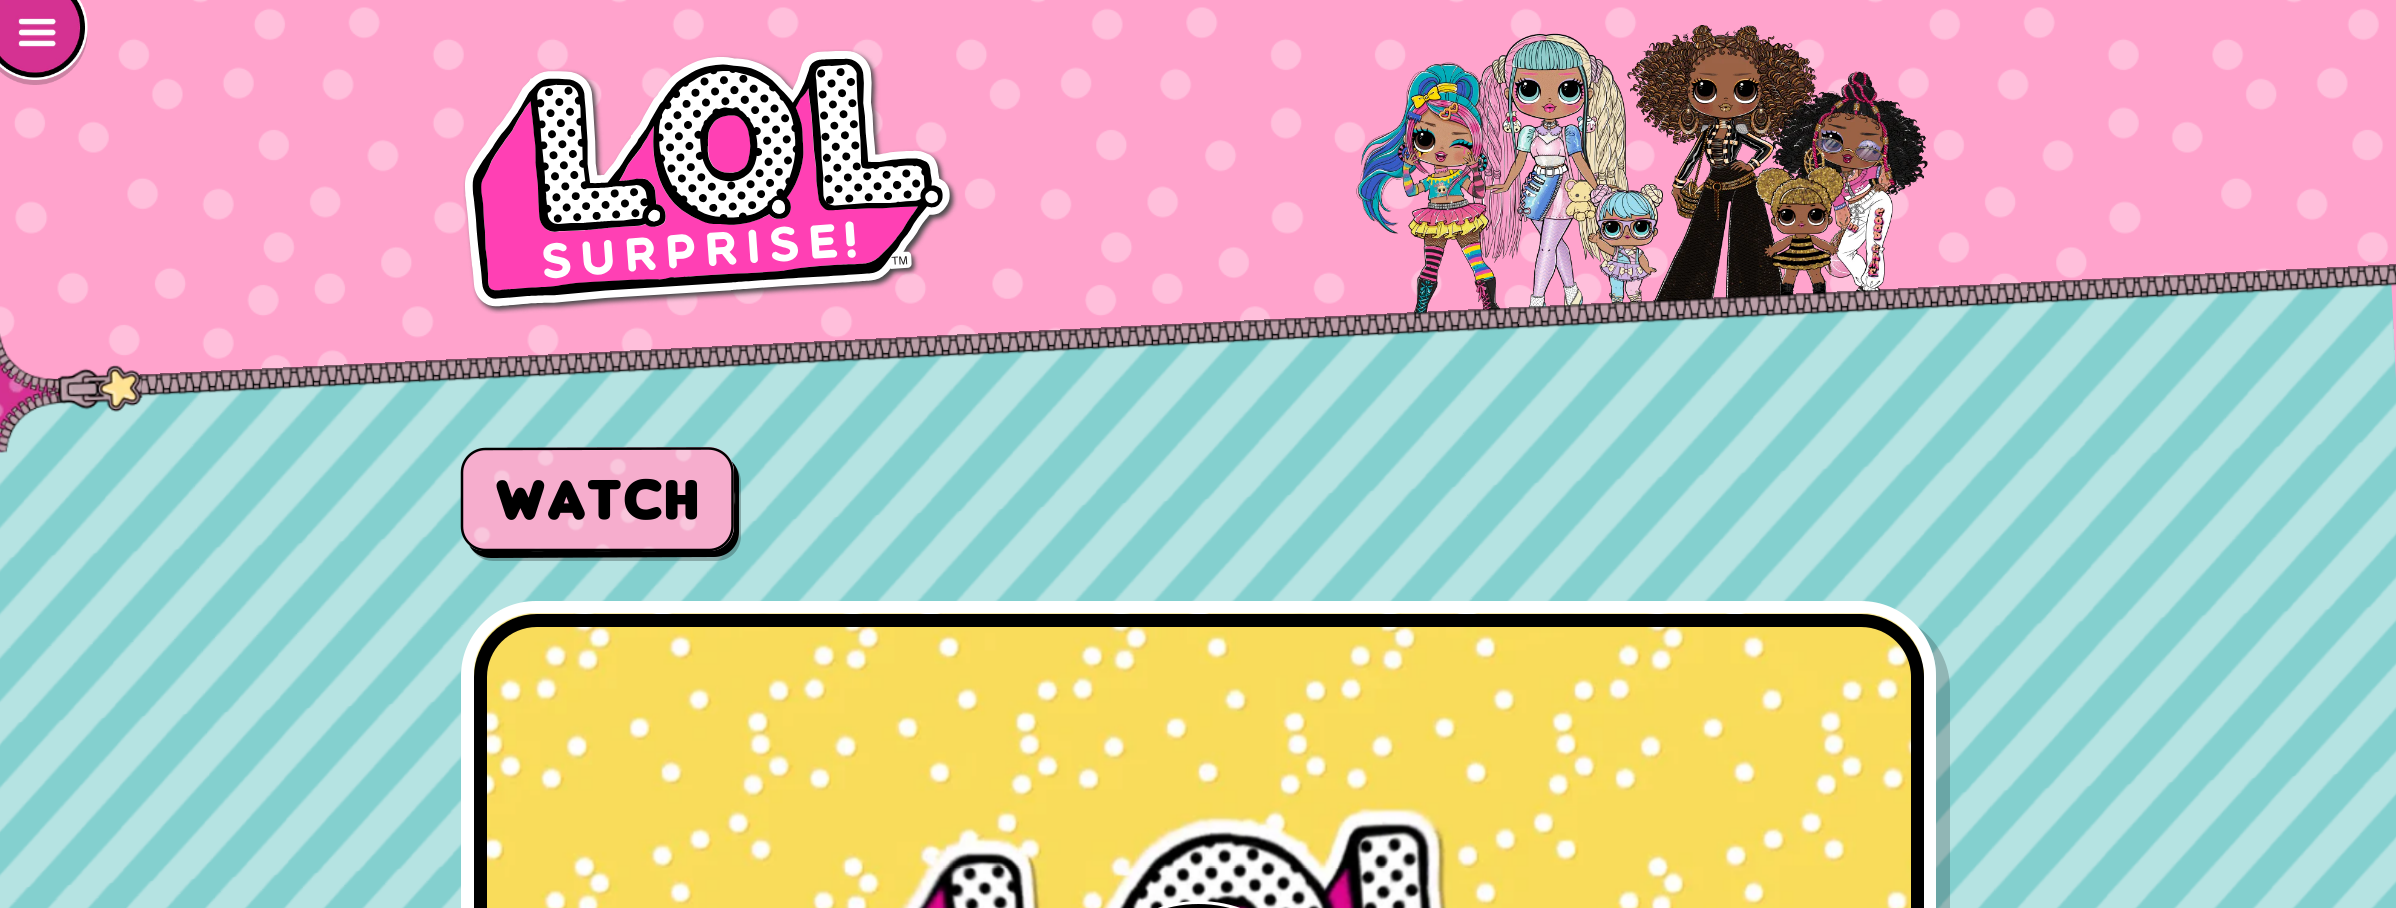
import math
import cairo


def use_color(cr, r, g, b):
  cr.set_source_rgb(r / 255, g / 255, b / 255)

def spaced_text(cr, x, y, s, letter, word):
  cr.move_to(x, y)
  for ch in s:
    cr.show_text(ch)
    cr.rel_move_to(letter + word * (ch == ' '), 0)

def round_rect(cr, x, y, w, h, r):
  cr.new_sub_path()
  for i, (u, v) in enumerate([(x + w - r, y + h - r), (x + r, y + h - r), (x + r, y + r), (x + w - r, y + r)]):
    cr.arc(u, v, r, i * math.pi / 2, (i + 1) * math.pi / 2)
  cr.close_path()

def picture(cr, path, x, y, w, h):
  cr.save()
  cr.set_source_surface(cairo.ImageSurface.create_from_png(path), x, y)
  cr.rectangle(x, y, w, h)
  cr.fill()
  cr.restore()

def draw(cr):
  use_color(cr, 255, 163, 204)
  cr.paint()
  picture(cr, "img_01.png", 0, 0, 2389, 371)
  picture(cr, "img_02.png", 0, 0, 88, 85)
  picture(cr, "img_03.png", 463, 49, 495, 265)
  picture(cr, "img_04.png", 1356, 25, 572, 290)
  use_color(cr, 132, 208, 207)
  cr.new_path()
  cr.move_to(-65, 396)
  cr.line_to(2391, 276)
  cr.line_to(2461, 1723)
  cr.line_to(6, 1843)
  cr.close_path()
  cr.fill()
  picture(cr, "img_07.png", 0, 283, 2396, 625)
  picture(cr, "img_05.png", 23, 264, 2373, 137)
  picture(cr, "img_06.png", 0, 333, 143, 120)
  cr.set_source_rgba(0, 0, 0, 0.25)
  cr.new_path()
  cr.move_to(470, 546)
  cr.curve_to(474, 555, 483, 561, 493, 561)
  cr.line_to(716, 561)
  cr.curve_to(730, 561, 741, 550, 741, 536)
  cr.line_to(741, 482)
  cr.curve_to(741, 474, 737, 467, 732, 462)
  cr.curve_to(733, 465, 734, 469, 734, 472)
  cr.line_to(734, 526)
  cr.curve_to(734, 540, 723, 551, 709, 551)
  cr.line_to(486, 551)
  cr.curve_to(480, 551, 474, 549, 470, 546)
  cr.close_path()
  cr.fill()
  use_color(cr, 0, 0, 0)
  cr.new_path()
  cr.move_to(469, 545)
  cr.curve_to(473, 553, 481, 558, 491, 558)
  cr.line_to(714, 557)
  cr.curve_to(728, 557, 739, 546, 739, 532)
  cr.line_to(739, 479)
  cr.curve_to(739, 472, 736, 465, 731, 461)
  cr.curve_to(733, 464, 734, 468, 734, 472)
  cr.line_to(734, 526)
  cr.curve_to(734, 540, 723, 551, 709, 551)
  cr.line_to(486, 551)
  cr.curve_to(479, 551, 473, 549, 469, 545)
  cr.close_path()
  cr.fill()
  use_color(cr, 246, 173, 205)
  cr.new_path()
  cr.move_to(486, 448)
  cr.line_to(709, 447)
  cr.curve_to(722, 447, 734, 458, 734, 472)
  cr.line_to(734, 526)
  cr.curve_to(734, 540, 723, 551, 709, 551)
  cr.line_to(486, 551)
  cr.curve_to(472, 551, 461, 540, 461, 526)
  cr.line_to(461, 473)
  cr.curve_to(461, 459, 472, 448, 486, 448)
  cr.close_path()
  cr.fill()
  picture(cr, "img_08.png", 473, 447, 263, 105)
  cr.new_path()
  cr.move_to(485.5, 449)
  cr.line_to(708.5, 448.5)
  cr.curve_to(722, 448.5, 732.5, 459, 732.5, 472.5)
  cr.line_to(732.5, 526)
  cr.curve_to(732.5, 539, 722, 550, 709, 550)
  cr.line_to(485.5, 550)
  cr.curve_to(472.5, 550, 462, 539.5, 462, 526.5)
  cr.line_to(462, 472.5)
  cr.curve_to(462, 459.5, 472.5, 449, 485.5, 449)
  cr.close_path()
  use_color(cr, 0, 0, 0)
  cr.set_line_width(2.5)
  cr.stroke()
  cr.set_source_rgba(0, 0, 0, 0.2)
  cr.new_path()
  cr.move_to(487, 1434)
  cr.curve_to(501, 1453, 524, 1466, 549, 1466)
  cr.line_to(1874, 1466)
  cr.curve_to(1916, 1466, 1950, 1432, 1950, 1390)
  cr.line_to(1950, 689)
  cr.curve_to(1950, 663, 1937, 640, 1918, 627)
  cr.curve_to(1929, 640, 1936, 657, 1936, 676)
  cr.line_to(1936, 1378)
  cr.curve_to(1936, 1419, 1903, 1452, 1861, 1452)
  cr.line_to(536, 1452)
  cr.curve_to(517, 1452, 500, 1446, 487, 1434)
  cr.close_path()
  cr.fill()
  round_rect(cr, 467.5, 607.5, 1462, 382, 68.5)
  use_color(cr, 255, 255, 255)
  cr.set_line_width(13)
  cr.stroke()
  picture(cr, "img_09.png", 474, 613, 1450, 295)
  round_rect(cr, 480.5, 620.5, 1437, 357, 56.5)
  use_color(cr, 0, 0, 0)
  cr.stroke()
  use_color(cr, 255, 255, 255)
  round_rect(cr, 1075.5, 902.5, 247, 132, 123.5)
  cr.fill_preserve()
  cr.set_line_width(3)
  cr.stroke()
  round_rect(cr, 1083.5, 911.5, 230, 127, 115)
  use_color(cr, 0, 0, 0)
  cr.set_line_width(15)
  cr.stroke()
  cr.select_font_face("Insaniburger")
  cr.set_font_size(60)
  cr.save()
  cr.translate(494, 520)
  cr.rotate(-0.1 * math.pi / 180)
  spaced_text(cr, 0, 0, "WATCH", 2, 0)
  cr.restore()


surface = cairo.ImageSurface(cairo.FORMAT_RGB24, 2396, 908)
cr = cairo.Context(surface)
options = cairo.FontOptions()
options.set_hint_metrics(cairo.HINT_METRICS_OFF)
options.set_hint_style(cairo.HINT_STYLE_NONE)
cr.set_font_options(options)
cr.set_miter_limit(4)
draw(cr)
surface.write_to_png("out.png")
